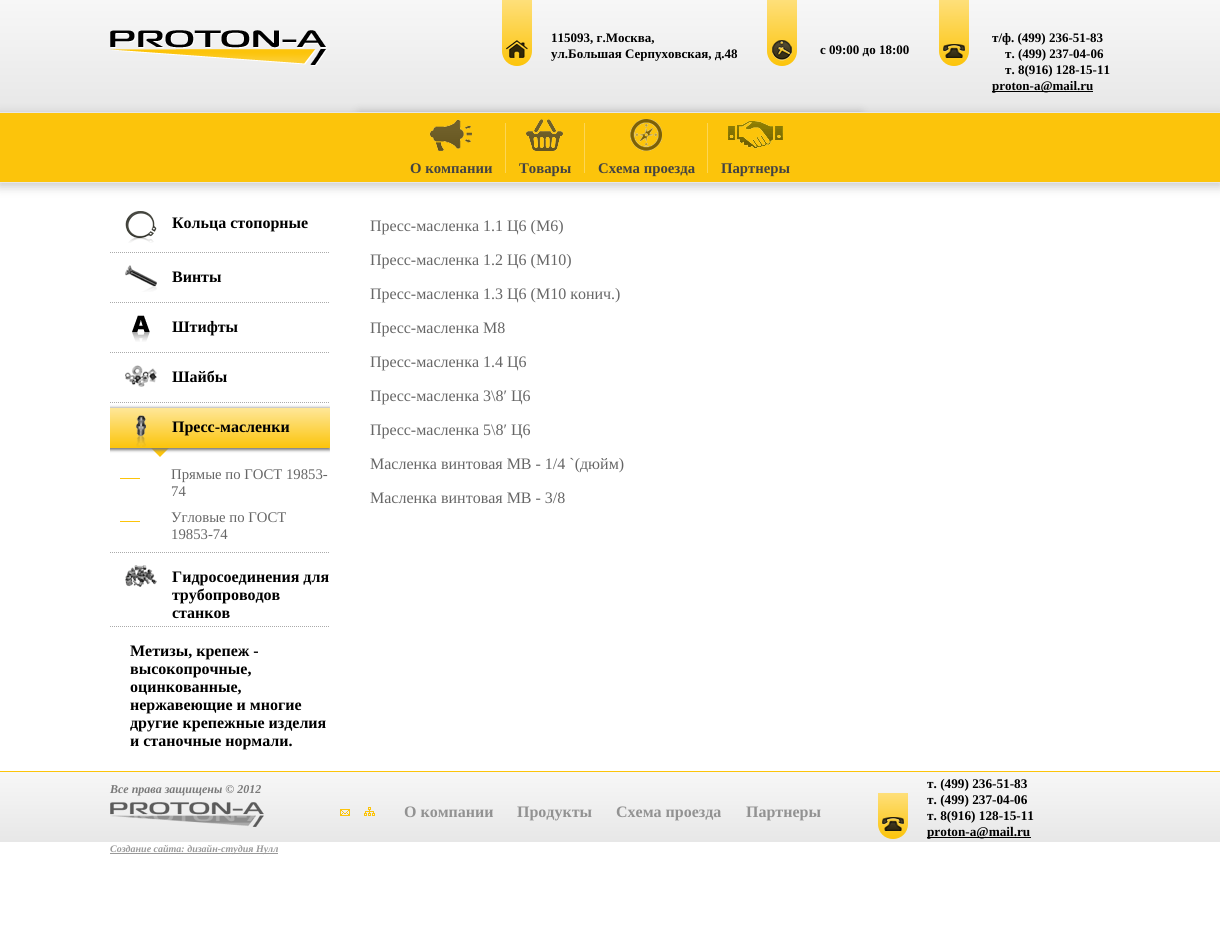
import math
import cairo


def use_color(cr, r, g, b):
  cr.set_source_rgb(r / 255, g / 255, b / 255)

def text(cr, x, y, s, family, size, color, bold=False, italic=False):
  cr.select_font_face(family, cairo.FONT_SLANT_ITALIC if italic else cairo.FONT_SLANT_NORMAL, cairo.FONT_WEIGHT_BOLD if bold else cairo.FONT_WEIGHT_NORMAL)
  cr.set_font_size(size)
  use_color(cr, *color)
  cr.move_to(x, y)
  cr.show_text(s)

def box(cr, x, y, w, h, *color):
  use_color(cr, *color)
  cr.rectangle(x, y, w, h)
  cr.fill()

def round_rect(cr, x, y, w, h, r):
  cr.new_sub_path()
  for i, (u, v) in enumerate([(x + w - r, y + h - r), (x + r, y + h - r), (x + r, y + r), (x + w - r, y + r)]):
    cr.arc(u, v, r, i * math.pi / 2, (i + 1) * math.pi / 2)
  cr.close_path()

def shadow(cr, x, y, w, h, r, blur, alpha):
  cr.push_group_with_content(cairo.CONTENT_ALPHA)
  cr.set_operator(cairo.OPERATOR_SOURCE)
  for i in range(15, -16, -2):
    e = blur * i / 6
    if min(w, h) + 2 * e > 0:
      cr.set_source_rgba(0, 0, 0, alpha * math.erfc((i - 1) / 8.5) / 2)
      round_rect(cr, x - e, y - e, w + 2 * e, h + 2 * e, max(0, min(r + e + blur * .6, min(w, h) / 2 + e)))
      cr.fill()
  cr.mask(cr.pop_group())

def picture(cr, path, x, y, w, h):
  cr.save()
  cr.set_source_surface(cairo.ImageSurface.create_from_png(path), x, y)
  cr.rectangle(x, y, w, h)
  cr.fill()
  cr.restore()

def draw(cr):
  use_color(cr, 255, 255, 255)
  cr.paint()
  gradient = cairo.LinearGradient(610, 0, 610, 114)
  gradient.add_color_stop_rgba(0, 0.969, 0.969, 0.969, 1)
  gradient.add_color_stop_rgba(1, 0.906, 0.906, 0.906, 1)
  cr.set_source(gradient)
  cr.rectangle(0, 0, 1220, 112)
  cr.fill()
  picture(cr, "img_01.png", 110, 30, 217, 36)
  gradient = cairo.LinearGradient(517, 0, 517, 66)
  gradient.add_color_stop_rgba(0, 0.996, 0.875, 0.478, 1)
  gradient.add_color_stop_rgba(1, 0.988, 0.769, 0.043, 1)
  cr.set_source(gradient)
  cr.new_path()
  cr.move_to(502, 0)
  cr.line_to(532, 0)
  cr.line_to(532, 51)
  cr.curve_to(532, 59.5, 525.5, 66, 517, 66)
  cr.curve_to(508.5, 66, 502, 59.5, 502, 51)
  cr.close_path()
  cr.fill()
  picture(cr, "img_02.png", 506, 40, 22, 18)
  gradient = cairo.LinearGradient(782, 0, 782, 66)
  gradient.add_color_stop_rgba(0, 0.996, 0.875, 0.478, 1)
  gradient.add_color_stop_rgba(1, 0.988, 0.769, 0.043, 1)
  cr.set_source(gradient)
  cr.new_path()
  cr.move_to(767, 0)
  cr.line_to(797, 0)
  cr.line_to(797, 51)
  cr.curve_to(797, 59.5, 790.5, 66, 782, 66)
  cr.curve_to(773.5, 66, 767, 59.5, 767, 51)
  cr.close_path()
  cr.fill()
  picture(cr, "img_03.png", 772, 40, 20, 21)
  gradient = cairo.LinearGradient(954, 0, 954, 66)
  gradient.add_color_stop_rgba(0, 0.996, 0.875, 0.478, 1)
  gradient.add_color_stop_rgba(1, 0.988, 0.769, 0.043, 1)
  cr.set_source(gradient)
  cr.new_path()
  cr.move_to(939, 0)
  cr.line_to(969, 0)
  cr.line_to(969, 51)
  cr.curve_to(969, 59.5, 962.5, 66, 954, 66)
  cr.curve_to(945.5, 66, 939, 59.5, 939, 51)
  cr.close_path()
  cr.fill()
  picture(cr, "img_04.png", 943, 44, 22, 14)
  box(cr, 992, 91, 101, 1, 0, 0, 0)
  use_color(cr, 0, 0, 0)
  shadow(cr, 359, 113, 502, 7, 3.5, 5, 0.2)
  shadow(cr, -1, 114, 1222, 73, 0, 5, 0.2)
  box(cr, 0, 113, 1220, 69, 252, 196, 11)
  box(cr, 0, 112, 1220, 1, 231, 231, 231)
  box(cr, 0, 182, 1220, 1, 231, 231, 231)
  picture(cr, "img_05.png", 429, 119, 43, 32)
  box(cr, 505, 123, 1, 50, 253, 214, 84)
  picture(cr, "img_06.png", 526, 119, 37, 32)
  box(cr, 584, 123, 1, 50, 253, 214, 84)
  picture(cr, "img_07.png", 630, 119, 32, 32)
  box(cr, 707, 123, 1, 50, 253, 214, 84)
  picture(cr, "img_08.png", 728, 121, 55, 28)
  picture(cr, "img_09.png", 125, 211, 32, 32)
  cr.new_path()
  cr.move_to(110, 252.5)
  cr.line_to(330, 252.5)
  use_color(cr, 170, 170, 170)
  cr.set_line_width(1)
  cr.set_dash([1, 1])
  cr.stroke()
  picture(cr, "img_10.png", 125, 265, 32, 27)
  cr.new_path()
  cr.move_to(110, 302.5)
  cr.line_to(330, 302.5)
  cr.stroke()
  picture(cr, "img_11.png", 132, 315, 18, 27)
  cr.new_path()
  cr.move_to(110, 352.5)
  cr.line_to(330, 352.5)
  cr.stroke()
  picture(cr, "img_12.png", 125, 365, 32, 22)
  cr.new_path()
  cr.move_to(110, 402.5)
  cr.line_to(330, 402.5)
  cr.stroke()
  use_color(cr, 252, 196, 11)
  cr.new_path()
  cr.move_to(150, 447)
  cr.line_to(170, 447)
  cr.line_to(160, 457)
  cr.close_path()
  cr.fill()
  cr.save()
  cr.rectangle(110, 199, 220, 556)
  cr.clip()
  use_color(cr, 119, 119, 119)
  shadow(cr, 108, 408, 222, 42, 0, 1.5, 1)
  cr.restore()
  gradient = cairo.LinearGradient(220, 408, 220, 448)
  gradient.add_color_stop_rgba(0, 0.996, 0.906, 0.6, 1)
  gradient.add_color_stop_rgba(1, 0.988, 0.769, 0.043, 1)
  cr.set_source(gradient)
  cr.rectangle(110, 408, 220, 40)
  cr.fill()
  picture(cr, "img_13.png", 136, 415, 10, 32)
  box(cr, 120, 478, 20, 1, 252, 196, 11)
  box(cr, 120, 521, 20, 1, 252, 196, 11)
  cr.new_path()
  cr.move_to(110, 552.5)
  cr.line_to(330, 552.5)
  use_color(cr, 170, 170, 170)
  cr.stroke()
  picture(cr, "img_14.png", 125, 565, 32, 22)
  cr.new_path()
  cr.move_to(110, 626.5)
  cr.line_to(330, 626.5)
  cr.stroke()
  gradient = cairo.LinearGradient(610, 772, 610, 842)
  gradient.add_color_stop_rgba(0, 0.969, 0.969, 0.969, 1)
  gradient.add_color_stop_rgba(1, 0.906, 0.906, 0.906, 1)
  cr.set_source(gradient)
  cr.rectangle(0, 772, 1220, 70)
  cr.fill()
  box(cr, 0, 771, 1220, 1, 252, 196, 11)
  picture(cr, "img_15.png", 110, 802, 154, 25)
  box(cr, 110, 853, 168, 1, 153, 153, 153)
  picture(cr, "img_16.png", 340, 809, 10, 7)
  picture(cr, "img_17.png", 364, 807, 11, 9)
  gradient = cairo.LinearGradient(893, 793, 893, 839)
  gradient.add_color_stop_rgba(0, 0.996, 0.875, 0.478, 1)
  gradient.add_color_stop_rgba(1, 0.988, 0.769, 0.043, 1)
  cr.set_source(gradient)
  cr.new_path()
  cr.move_to(878, 793)
  cr.line_to(908, 793)
  cr.line_to(908, 824)
  cr.curve_to(908, 832.5, 901.5, 839, 893, 839)
  cr.curve_to(884.5, 839, 878, 832.5, 878, 824)
  cr.close_path()
  cr.fill()
  picture(cr, "img_18.png", 882, 817, 22, 14)
  box(cr, 927, 837, 104, 1, 0, 0, 0)
  text(cr, 551, 42, "115093, г.Москва,", "Liberation Serif", 13, (0, 0, 0), bold=True)
  text(cr, 551, 58, "ул.Большая Серпуховская, д.48", "Liberation Serif", 13, (0, 0, 0), bold=True)
  text(cr, 820, 54, "с 09:00 до 18:00", "Liberation Serif", 13, (0, 0, 0), bold=True)
  text(cr, 992, 42, "т/ф. (499) 236-51-83", "Liberation Serif", 13, (0, 0, 0), bold=True)
  text(cr, 1005, 58, "т. (499) 237-04-06", "Liberation Serif", 13, (0, 0, 0), bold=True)
  text(cr, 1005, 74, "т. 8(916) 128-15-11", "Liberation Serif", 13, (0, 0, 0), bold=True)
  text(cr, 992, 90, "proton-a@mail.ru", "Liberation Serif", 13, (0, 0, 0), bold=True)
  text(cr, 410, 173, "О компании", "Liberation Serif", 14.75, (67, 67, 67), bold=True)
  text(cr, 519, 173, "Товары", "Liberation Serif", 14.75, (67, 67, 67), bold=True)
  text(cr, 598, 173, "Схема проезда", "Liberation Serif", 14.75, (67, 67, 67), bold=True)
  text(cr, 721, 173, "Партнеры", "Liberation Serif", 14.75, (67, 67, 67), bold=True)
  text(cr, 172, 228, "Кольца стопорные", "Liberation Serif", 16, (0, 0, 0), bold=True)
  text(cr, 172, 282, "Винты", "Liberation Serif", 16, (0, 0, 0), bold=True)
  text(cr, 172, 332, "Штифты", "Liberation Serif", 16, (0, 0, 0), bold=True)
  text(cr, 172, 382, "Шайбы", "Liberation Serif", 16, (0, 0, 0), bold=True)
  text(cr, 172, 432, "Пресс-масленки", "Liberation Serif", 16, (0, 0, 0), bold=True)
  text(cr, 171, 479, "Прямые по ГОСТ 19853-", "Liberation Serif", 14.75, (102, 102, 102))
  text(cr, 171, 496, "74", "Liberation Serif", 14.75, (102, 102, 102))
  text(cr, 171, 522, "Угловые по ГОСТ", "Liberation Serif", 14.75, (102, 102, 102))
  text(cr, 171, 539, "19853-74", "Liberation Serif", 14.75, (102, 102, 102))
  text(cr, 172, 582, "Гидросоединения для", "Liberation Serif", 16, (0, 0, 0), bold=True)
  text(cr, 172, 600, "трубопроводов", "Liberation Serif", 16, (0, 0, 0), bold=True)
  text(cr, 172, 618, "станков", "Liberation Serif", 16, (0, 0, 0), bold=True)
  text(cr, 130, 656, "Метизы, крепеж -", "Liberation Serif", 16, (0, 0, 0), bold=True)
  text(cr, 130, 674, "высокопрочные,", "Liberation Serif", 16, (0, 0, 0), bold=True)
  text(cr, 130, 692, "оцинкованные,", "Liberation Serif", 16, (0, 0, 0), bold=True)
  text(cr, 130, 710, "нержавеющие и многие", "Liberation Serif", 16, (0, 0, 0), bold=True)
  text(cr, 130, 728, "другие крепежные изделия", "Liberation Serif", 16, (0, 0, 0), bold=True)
  text(cr, 130, 746, "и станочные нормали.", "Liberation Serif", 16, (0, 0, 0), bold=True)
  text(cr, 370, 231, "Пресс-масленка 1.1 Ц6 (М6)", "Liberation Serif", 16, (102, 102, 102))
  text(cr, 370, 265, "Пресс-масленка 1.2 Ц6 (М10)", "Liberation Serif", 16, (102, 102, 102))
  text(cr, 370, 299, "Пресс-масленка 1.3 Ц6 (М10 конич.)", "Liberation Serif", 16, (102, 102, 102))
  text(cr, 370, 333, "Пресс-масленка М8", "Liberation Serif", 16, (102, 102, 102))
  text(cr, 370, 367, "Пресс-масленка 1.4 Ц6", "Liberation Serif", 16, (102, 102, 102))
  text(cr, 370, 401, "Пресс-масленка 3\\8′ Ц6", "Liberation Serif", 16, (102, 102, 102))
  text(cr, 370, 435, "Пресс-масленка 5\\8′ Ц6", "Liberation Serif", 16, (102, 102, 102))
  text(cr, 370, 469, "Масленка винтовая МВ - 1/4 `(дюйм)", "Liberation Serif", 16, (102, 102, 102))
  text(cr, 370, 503, "Масленка винтовая МВ - 3/8", "Liberation Serif", 16, (102, 102, 102))
  text(cr, 110, 793, "Все права защищены © 2012", "Liberation Serif", 12, (121, 121, 121), bold=True, italic=True)
  text(cr, 110, 852, "Создание сайта: дизайн-студия Нулл", "Liberation Serif", 10, (153, 153, 153), bold=True, italic=True)
  text(cr, 404, 817, "О компании", "Liberation Serif", 16, (146, 146, 146), bold=True)
  text(cr, 517, 817, "Продукты", "Liberation Serif", 16, (146, 146, 146), bold=True)
  text(cr, 616, 817, "Схема проезда", "Liberation Serif", 16, (146, 146, 146), bold=True)
  text(cr, 746, 817, "Партнеры", "Liberation Serif", 16, (146, 146, 146), bold=True)
  text(cr, 927, 788, "т. (499) 236-51-83", "Liberation Serif", 13.25, (0, 0, 0), bold=True)
  text(cr, 927, 804, "т. (499) 237-04-06", "Liberation Serif", 13.25, (0, 0, 0), bold=True)
  text(cr, 927, 820, "т. 8(916) 128-15-11", "Liberation Serif", 13.25, (0, 0, 0), bold=True)
  text(cr, 927, 836, "proton-a@mail.ru", "Liberation Serif", 13.25, (0, 0, 0), bold=True)


surface = cairo.ImageSurface(cairo.FORMAT_RGB24, 1220, 927)
cr = cairo.Context(surface)
options = cairo.FontOptions()
options.set_hint_metrics(cairo.HINT_METRICS_OFF)
options.set_hint_style(cairo.HINT_STYLE_NONE)
cr.set_font_options(options)
cr.set_miter_limit(4)
draw(cr)
surface.write_to_png("out.png")
